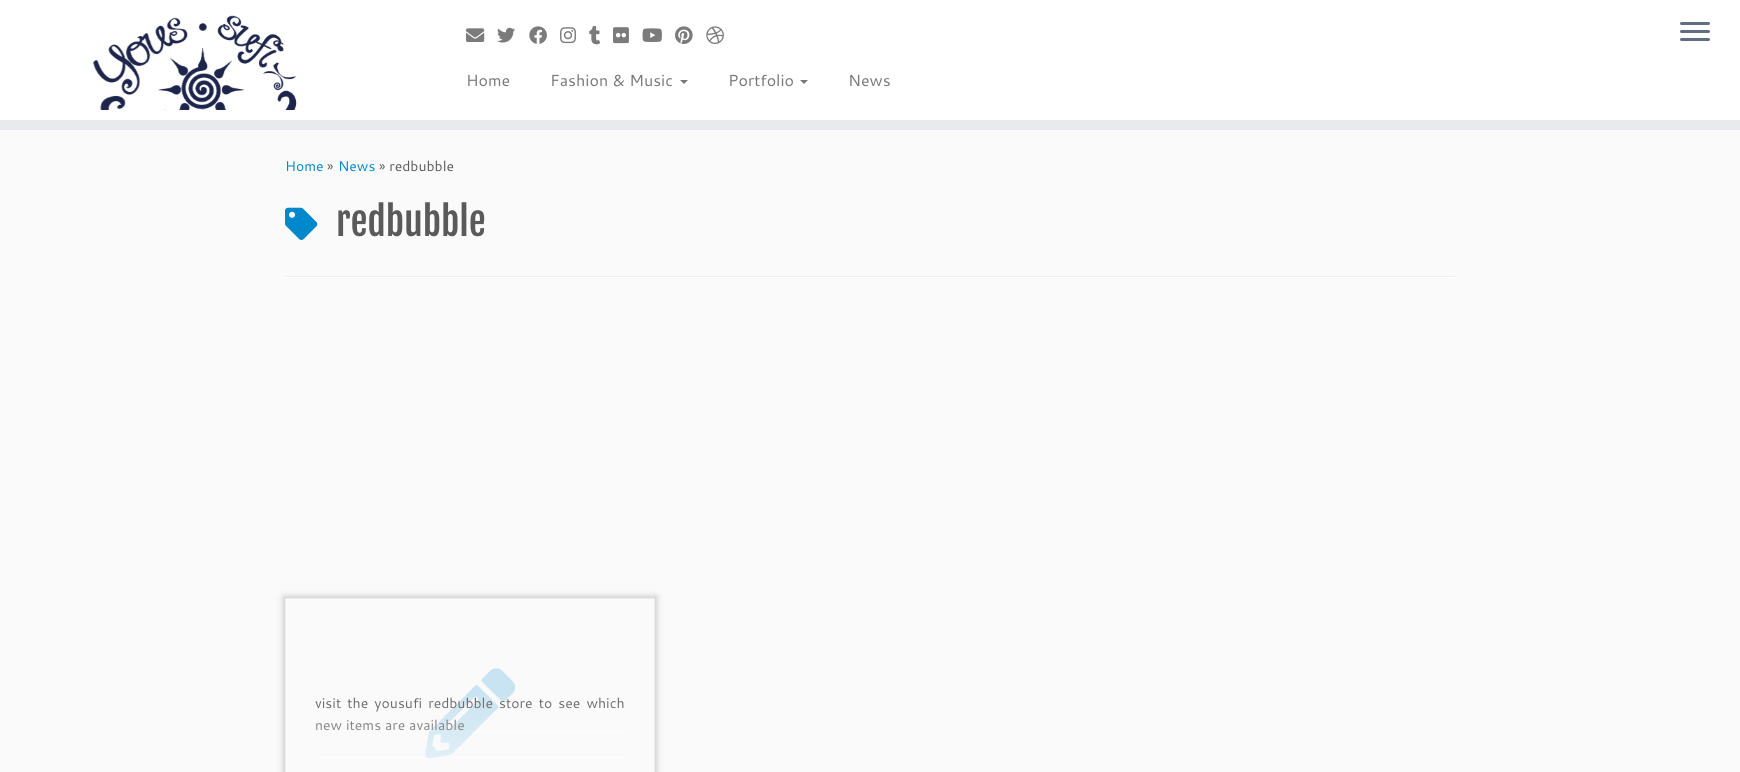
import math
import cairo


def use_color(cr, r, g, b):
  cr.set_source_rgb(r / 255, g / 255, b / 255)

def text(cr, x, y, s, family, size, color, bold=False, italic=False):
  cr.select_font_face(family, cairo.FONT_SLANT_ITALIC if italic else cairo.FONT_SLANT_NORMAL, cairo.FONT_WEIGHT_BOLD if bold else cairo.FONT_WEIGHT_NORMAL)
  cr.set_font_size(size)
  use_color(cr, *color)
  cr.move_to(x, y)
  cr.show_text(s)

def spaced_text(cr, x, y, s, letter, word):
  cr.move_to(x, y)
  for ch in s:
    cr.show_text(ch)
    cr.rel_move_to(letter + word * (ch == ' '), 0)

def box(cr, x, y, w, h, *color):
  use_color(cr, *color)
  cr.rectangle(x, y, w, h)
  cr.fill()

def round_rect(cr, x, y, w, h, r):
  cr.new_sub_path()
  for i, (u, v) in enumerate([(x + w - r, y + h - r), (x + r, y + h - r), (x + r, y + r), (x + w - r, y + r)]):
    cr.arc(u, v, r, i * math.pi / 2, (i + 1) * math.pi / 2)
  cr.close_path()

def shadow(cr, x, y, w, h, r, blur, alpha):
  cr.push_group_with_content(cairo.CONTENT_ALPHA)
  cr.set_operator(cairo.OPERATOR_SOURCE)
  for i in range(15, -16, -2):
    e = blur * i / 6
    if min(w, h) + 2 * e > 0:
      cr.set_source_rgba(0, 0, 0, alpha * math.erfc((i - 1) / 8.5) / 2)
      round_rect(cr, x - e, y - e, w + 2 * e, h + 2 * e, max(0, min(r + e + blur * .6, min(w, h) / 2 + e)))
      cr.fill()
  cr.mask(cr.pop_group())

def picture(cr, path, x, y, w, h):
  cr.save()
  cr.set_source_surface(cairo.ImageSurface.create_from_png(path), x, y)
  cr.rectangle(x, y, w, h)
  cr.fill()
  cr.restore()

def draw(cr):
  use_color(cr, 250, 250, 250)
  cr.paint()
  box(cr, 0, 0, 1740, 120, 255, 255, 255)
  box(cr, 0, 120, 1740, 10, 233, 234, 238)
  picture(cr, "img_01.png", 93, 15, 204, 95)
  picture(cr, "img_02.png", 466, 28, 19, 14)
  picture(cr, "img_03.png", 497, 27, 18, 16)
  picture(cr, "img_04.png", 529, 26, 18, 18)
  picture(cr, "img_05.png", 560, 27, 16, 17)
  picture(cr, "img_06.png", 589, 26, 11, 19)
  picture(cr, "img_07.png", 613, 27, 16, 17)
  picture(cr, "img_08.png", 642, 28, 20, 14)
  picture(cr, "img_09.png", 675, 26, 18, 18)
  picture(cr, "img_10.png", 706, 26, 18, 18)
  use_color(cr, 95, 111, 129)
  round_rect(cr, 1680, 22, 30, 3, 1.5)
  cr.fill()
  round_rect(cr, 1680, 30, 30, 3, 1.5)
  cr.fill()
  round_rect(cr, 1680, 38, 30, 3, 1.5)
  cr.fill()
  use_color(cr, 119, 119, 119)
  cr.new_path()
  cr.move_to(680, 80)
  cr.line_to(688, 80)
  cr.line_to(684, 84)
  cr.close_path()
  cr.fill()
  cr.new_path()
  cr.move_to(800, 80)
  cr.line_to(808, 80)
  cr.line_to(804, 84)
  cr.close_path()
  cr.fill()
  picture(cr, "img_11.png", 285, 207, 33, 33)
  box(cr, 285, 276, 1170, 1, 238, 238, 238)
  box(cr, 285, 277, 1170, 1, 255, 255, 255)
  cr.save()
  cr.set_fill_rule(cairo.FILL_RULE_EVEN_ODD)
  cr.new_path()
  cr.move_to(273, 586)
  cr.line_to(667, 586)
  cr.line_to(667, 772)
  cr.line_to(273, 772)
  cr.close_path()
  cr.move_to(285, 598)
  cr.line_to(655, 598)
  cr.line_to(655, 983)
  cr.line_to(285, 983)
  cr.close_path()
  cr.clip()
  use_color(cr, 204, 204, 204)
  shadow(cr, 283, 596, 374, 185, 0, 3, 1)
  cr.restore()
  box(cr, 285, 598, 370, 1, 238, 238, 238)
  cr.new_path()
  cr.move_to(655, 598)
  cr.line_to(655, 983)
  cr.line_to(654, 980)
  cr.line_to(654, 599)
  cr.close_path()
  cr.fill()
  cr.new_path()
  cr.move_to(285, 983)
  cr.line_to(285, 598)
  cr.line_to(286, 599)
  cr.line_to(286, 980)
  cr.close_path()
  cr.fill()
  picture(cr, "img_12.png", 425, 668, 91, 91)
  text(cr, 466, 86, "Home", "Cantarell", 16, (119, 119, 119))
  text(cr, 550, 86, "Fashion & Music", "Cantarell", 16, (119, 119, 119))
  text(cr, 728, 86, "Portfolio", "Cantarell", 16, (119, 119, 119))
  text(cr, 848, 86, "News", "Cantarell", 16, (119, 119, 119))
  text(cr, 285, 171, "Home", "Cantarell", 14, (0, 136, 204))
  text(cr, 327, 171, "»", "Cantarell", 14, (90, 90, 90))
  text(cr, 338, 171, "News", "Cantarell", 14, (0, 136, 204))
  text(cr, 379, 171, "» redbubble", "Cantarell", 14, (90, 90, 90))
  text(cr, 336, 236, "redbubble", "Fjalla One", 38, (90, 90, 90))
  cr.select_font_face("Cantarell")
  cr.set_font_size(14)
  spaced_text(cr, 315, 708, "visit the yousufi redbubble store to see which", 0, 2.25)
  text(cr, 315, 730, "new items are available", "Cantarell", 14, (90, 90, 90))
  gradient = cairo.LinearGradient(470, 689, 470, 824)
  gradient.add_color_stop_rgba(0, 0.98, 0.98, 0.98, 0)
  gradient.add_color_stop_rgba(1, 0.98, 0.98, 0.98, 1)
  cr.set_source(gradient)
  cr.rectangle(316, 696, 308, 63)
  cr.fill()


surface = cairo.ImageSurface(cairo.FORMAT_RGB24, 1740, 772)
cr = cairo.Context(surface)
options = cairo.FontOptions()
options.set_hint_metrics(cairo.HINT_METRICS_OFF)
options.set_hint_style(cairo.HINT_STYLE_NONE)
cr.set_font_options(options)
cr.set_miter_limit(4)
draw(cr)
surface.write_to_png("out.png")
